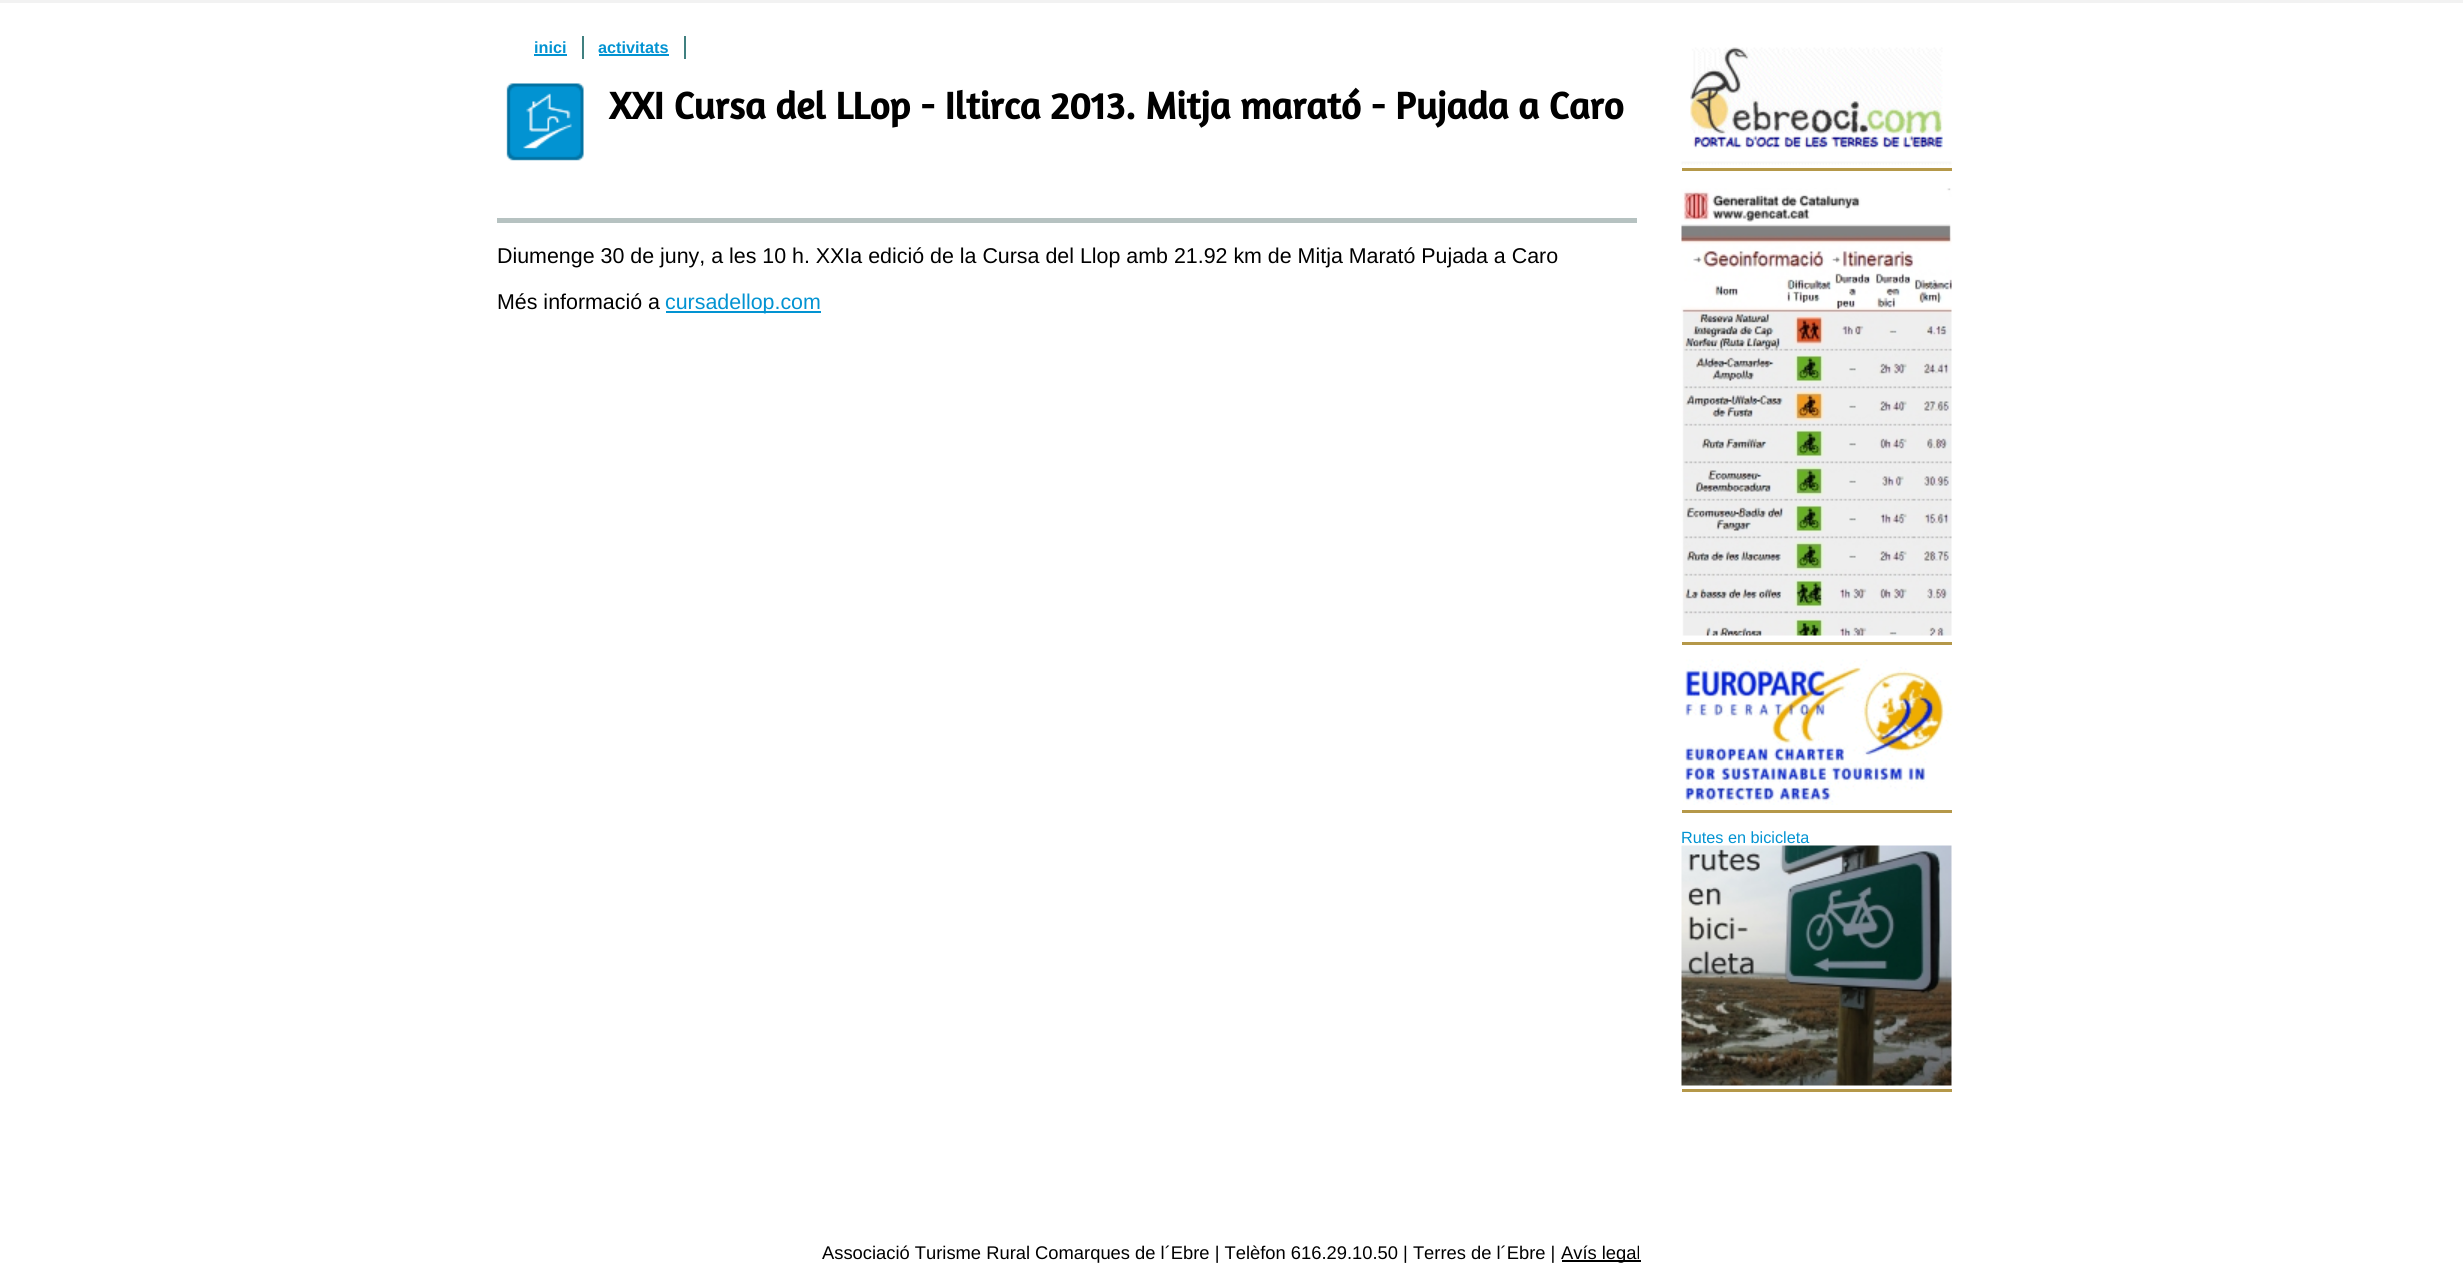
import math
import cairo


def use_color(cr, r, g, b):
  cr.set_source_rgb(r / 255, g / 255, b / 255)

def text(cr, x, y, s, family, size, color, bold=False, italic=False):
  cr.select_font_face(family, cairo.FONT_SLANT_ITALIC if italic else cairo.FONT_SLANT_NORMAL, cairo.FONT_WEIGHT_BOLD if bold else cairo.FONT_WEIGHT_NORMAL)
  cr.set_font_size(size)
  use_color(cr, *color)
  cr.move_to(x, y)
  cr.show_text(s)

def box(cr, x, y, w, h, *color):
  use_color(cr, *color)
  cr.rectangle(x, y, w, h)
  cr.fill()

def picture(cr, path, x, y, w, h):
  cr.save()
  cr.set_source_surface(cairo.ImageSurface.create_from_png(path), x, y)
  cr.rectangle(x, y, w, h)
  cr.fill()
  cr.restore()

def draw(cr):
  use_color(cr, 255, 255, 255)
  cr.paint()
  box(cr, 0, 0, 2463, 3, 242, 242, 242)
  box(cr, 582, 36, 2, 23, 64, 128, 128)
  box(cr, 534, 54, 33, 2, 2, 147, 210)
  box(cr, 684, 36, 2, 23, 64, 128, 128)
  box(cr, 599, 54, 70, 2, 2, 147, 210)
  picture(cr, "img_01.png", 506, 83, 78, 78)
  box(cr, 497, 218, 1140, 5, 182, 194, 193)
  box(cr, 666, 311, 155, 2, 2, 147, 210)
  box(cr, 1682, 168, 270, 3, 181, 152, 73)
  picture(cr, "img_02.png", 1681, 47, 271, 118)
  box(cr, 1682, 642, 270, 3, 181, 152, 73)
  picture(cr, "img_03.png", 1681, 188, 271, 448)
  box(cr, 1682, 810, 270, 3, 181, 152, 73)
  picture(cr, "img_04.png", 1683, 659, 269, 146)
  box(cr, 1682, 1089, 270, 3, 181, 152, 73)
  picture(cr, "img_05.png", 1681, 845, 271, 241)
  box(cr, 1562, 1260, 79, 2, 0, 0, 0)
  text(cr, 534, 53, "inici", "Liberation Sans", 16.25, (2, 147, 210), bold=True)
  text(cr, 598, 53, "activitats", "Liberation Sans", 16.25, (2, 147, 210), bold=True)
  text(cr, 609, 119, "XXI Cursa del LLop - Iltirca 2013. Mitja marató - Pujada a Caro", "Amaranth", 38.55, (0, 0, 0), bold=True)
  text(cr, 497, 263, "Diumenge 30 de juny, a les 10 h. XXIa edició de la Cursa del Llop amb 21.92 km de Mitja Marató Pujada a Caro", "Liberation Sans", 21.4, (0, 0, 0))
  text(cr, 497, 309, "Més informació a", "Liberation Sans", 21.4, (0, 0, 0))
  text(cr, 665, 309, "cursadellop.com", "Liberation Sans", 21.4, (2, 147, 210))
  text(cr, 1681, 843, "Rutes en bicicleta", "Liberation Sans", 16.25, (2, 147, 210))
  text(cr, 822, 1259, "Associació Turisme Rural Comarques de l´Ebre | Telèfon 616.29.10.50 | Terres de l´Ebre |", "Liberation Sans", 18.35, (0, 0, 0))
  text(cr, 1561, 1259, "Avís legal", "Liberation Sans", 18.35, (0, 0, 0))


surface = cairo.ImageSurface(cairo.FORMAT_RGB24, 2463, 1280)
cr = cairo.Context(surface)
options = cairo.FontOptions()
options.set_hint_metrics(cairo.HINT_METRICS_OFF)
options.set_hint_style(cairo.HINT_STYLE_NONE)
cr.set_font_options(options)
cr.set_miter_limit(4)
draw(cr)
surface.write_to_png("out.png")
